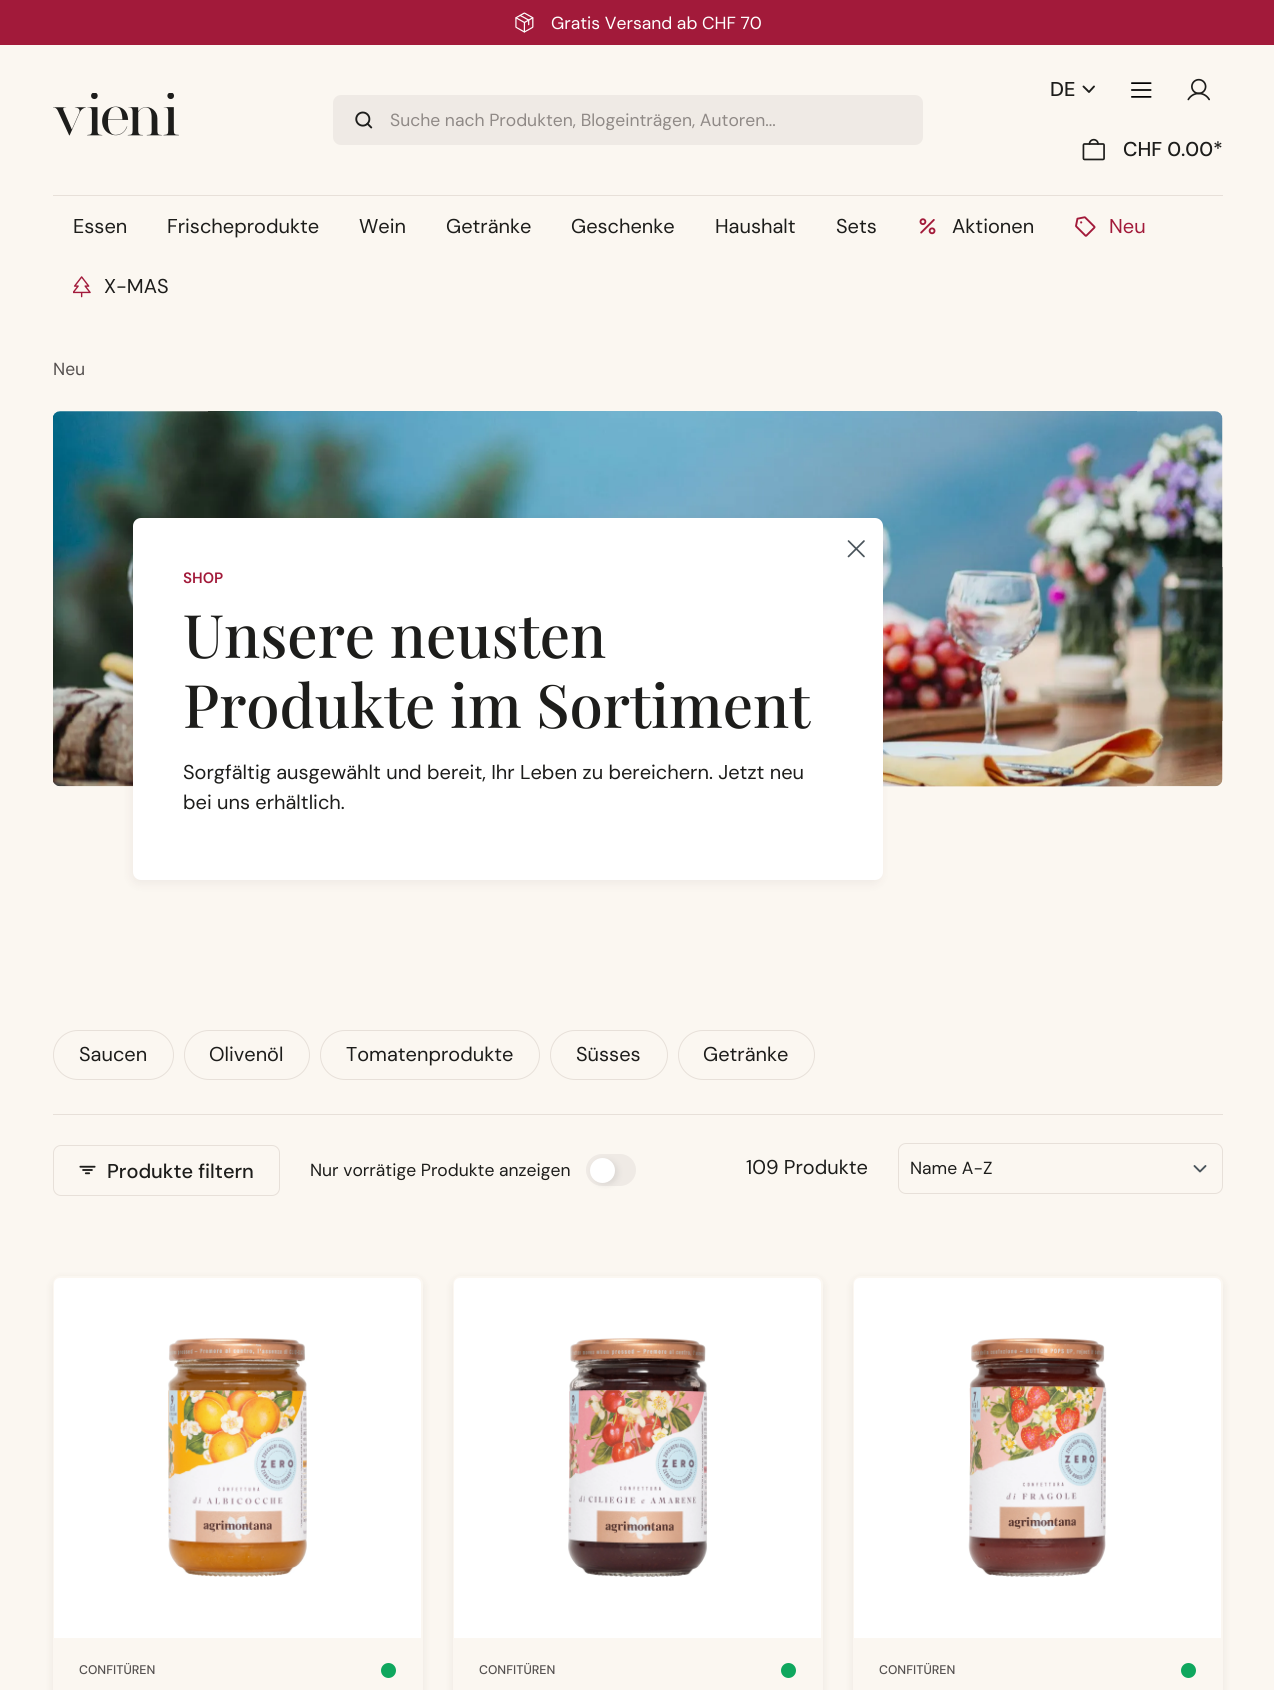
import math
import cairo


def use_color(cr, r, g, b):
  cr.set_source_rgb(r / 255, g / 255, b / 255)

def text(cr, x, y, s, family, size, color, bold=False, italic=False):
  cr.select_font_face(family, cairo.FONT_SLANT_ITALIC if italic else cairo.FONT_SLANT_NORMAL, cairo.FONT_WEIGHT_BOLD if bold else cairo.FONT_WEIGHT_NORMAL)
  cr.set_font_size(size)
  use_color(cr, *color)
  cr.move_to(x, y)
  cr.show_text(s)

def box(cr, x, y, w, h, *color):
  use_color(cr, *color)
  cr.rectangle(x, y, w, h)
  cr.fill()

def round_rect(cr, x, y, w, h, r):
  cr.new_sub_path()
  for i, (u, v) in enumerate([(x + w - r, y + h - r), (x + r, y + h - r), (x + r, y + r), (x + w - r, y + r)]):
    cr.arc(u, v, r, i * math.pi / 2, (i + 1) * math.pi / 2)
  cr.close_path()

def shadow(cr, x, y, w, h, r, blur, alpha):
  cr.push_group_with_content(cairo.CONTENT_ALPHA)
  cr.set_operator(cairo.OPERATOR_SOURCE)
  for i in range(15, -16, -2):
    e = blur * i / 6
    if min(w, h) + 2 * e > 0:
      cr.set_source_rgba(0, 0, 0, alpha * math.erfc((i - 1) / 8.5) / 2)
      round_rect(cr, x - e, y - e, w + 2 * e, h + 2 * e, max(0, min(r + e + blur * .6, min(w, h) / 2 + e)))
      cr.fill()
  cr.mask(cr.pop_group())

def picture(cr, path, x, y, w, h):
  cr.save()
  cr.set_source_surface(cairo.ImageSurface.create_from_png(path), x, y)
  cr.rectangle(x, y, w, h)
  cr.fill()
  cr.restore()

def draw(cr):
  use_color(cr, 251, 247, 241)
  cr.paint()
  box(cr, 0, 0, 1274, 45, 162, 26, 58)
  picture(cr, "img_01.png", 515, 12, 19, 21)
  box(cr, 53, 195, 1170, 1, 231, 224, 217)
  picture(cr, "img_02.png", 53, 93, 126, 43)
  use_color(cr, 239, 234, 229)
  round_rect(cr, 333, 95, 590, 50, 8)
  cr.fill()
  picture(cr, "img_03.png", 355, 111, 18, 18)
  cr.new_path()
  cr.move_to(1094, 86.5)
  cr.line_to(1089, 92)
  cr.line_to(1083.5, 86.5)
  use_color(cr, 29, 29, 27)
  cr.set_line_width(1.9)
  cr.set_line_cap(cairo.LINE_CAP_ROUND)
  cr.set_line_join(cairo.LINE_JOIN_ROUND)
  cr.stroke()
  picture(cr, "img_04.png", 1131, 82, 21, 16)
  picture(cr, "img_05.png", 1187, 78, 23, 23)
  picture(cr, "img_06.png", 1082, 138, 23, 23)
  picture(cr, "img_07.png", 919, 218, 17, 17)
  picture(cr, "img_08.png", 1075, 216, 21, 21)
  picture(cr, "img_09.png", 73, 276, 18, 22)
  picture(cr, "img_10.png", 53, 411, 1170, 376)
  use_color(cr, 53, 19, 27)
  shadow(cr, 131, 521, 750, 363, 8, 5, 0.06)
  use_color(cr, 255, 255, 255)
  round_rect(cr, 133, 518, 750, 362, 8)
  cr.fill()
  picture(cr, "img_11.png", 847, 540, 18, 18)
  box(cr, 53, 1114, 1170, 1, 231, 224, 217)
  round_rect(cr, 53.5, 1030.5, 120, 49, 24.5)
  cr.set_line_width(1)
  cr.set_line_cap(cairo.LINE_CAP_BUTT)
  cr.set_line_join(cairo.LINE_JOIN_MITER)
  cr.stroke()
  round_rect(cr, 184.5, 1030.5, 125, 49, 24.5)
  cr.stroke()
  round_rect(cr, 320.5, 1030.5, 219, 49, 24.5)
  cr.stroke()
  round_rect(cr, 550.5, 1030.5, 117, 49, 24.5)
  cr.stroke()
  round_rect(cr, 678.5, 1030.5, 136, 49, 24.5)
  cr.stroke()
  round_rect(cr, 53.5, 1145.5, 226, 50, 7.5)
  cr.stroke()
  picture(cr, "img_12.png", 79, 1165, 17, 10)
  use_color(cr, 239, 234, 229)
  round_rect(cr, 586, 1154, 50, 32, 16)
  cr.fill()
  use_color(cr, 110, 110, 110)
  shadow(cr, 593, 1160, 25, 25, 12.5, 3, 0.15)
  use_color(cr, 255, 255, 255)
  cr.arc(602.5, 1170.5, 12.5, 0, 2 * math.pi)
  cr.fill()
  cr.new_path()
  cr.move_to(1194.5, 1166)
  cr.line_to(1200, 1171.5)
  cr.line_to(1205.5, 1166)
  use_color(cr, 74, 84, 91)
  cr.set_line_width(1.9)
  cr.set_line_cap(cairo.LINE_CAP_ROUND)
  cr.set_line_join(cairo.LINE_JOIN_ROUND)
  cr.stroke()
  round_rect(cr, 898.5, 1143.5, 324, 50, 7.5)
  use_color(cr, 231, 224, 217)
  cr.set_line_width(1)
  cr.set_line_cap(cairo.LINE_CAP_BUTT)
  cr.set_line_join(cairo.LINE_JOIN_MITER)
  cr.stroke()
  use_color(cr, 48, 36, 24)
  shadow(cr, 53, 1279, 370, 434, 8, 5, 0.08)
  use_color(cr, 251, 247, 241)
  round_rect(cr, 53, 1276, 370, 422, 8)
  cr.fill()
  use_color(cr, 255, 255, 255)
  cr.new_path()
  cr.move_to(60, 1278)
  cr.line_to(415, 1278)
  cr.curve_to(418.5, 1278, 421, 1280.5, 421, 1284)
  cr.line_to(421, 1638)
  cr.line_to(54, 1638)
  cr.line_to(54, 1284)
  cr.curve_to(54, 1280.5, 56.5, 1278, 60, 1278)
  cr.close_path()
  cr.fill()
  picture(cr, "img_13.png", 168, 1338, 139, 239)
  use_color(cr, 15, 167, 94)
  cr.arc(388.5, 1670.5, 7.5, 0, 2 * math.pi)
  cr.fill()
  use_color(cr, 48, 36, 24)
  shadow(cr, 453, 1279, 370, 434, 8, 5, 0.08)
  use_color(cr, 251, 247, 241)
  round_rect(cr, 453, 1276, 370, 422, 8)
  cr.fill()
  use_color(cr, 255, 255, 255)
  cr.new_path()
  cr.move_to(460, 1278)
  cr.line_to(815, 1278)
  cr.curve_to(818.5, 1278, 821, 1280.5, 821, 1284)
  cr.line_to(821, 1638)
  cr.line_to(454, 1638)
  cr.line_to(454, 1284)
  cr.curve_to(454, 1280.5, 456.5, 1278, 460, 1278)
  cr.close_path()
  cr.fill()
  picture(cr, "img_14.png", 568, 1338, 140, 239)
  use_color(cr, 15, 167, 94)
  cr.arc(788.5, 1670.5, 7.5, 0, 2 * math.pi)
  cr.fill()
  use_color(cr, 48, 36, 24)
  shadow(cr, 853, 1279, 370, 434, 8, 5, 0.08)
  use_color(cr, 251, 247, 241)
  round_rect(cr, 853, 1276, 370, 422, 8)
  cr.fill()
  use_color(cr, 255, 255, 255)
  cr.new_path()
  cr.move_to(860, 1278)
  cr.line_to(1215, 1278)
  cr.curve_to(1218.5, 1278, 1221, 1280.5, 1221, 1284)
  cr.line_to(1221, 1638)
  cr.line_to(854, 1638)
  cr.line_to(854, 1284)
  cr.curve_to(854, 1280.5, 856.5, 1278, 860, 1278)
  cr.close_path()
  cr.fill()
  picture(cr, "img_15.png", 968, 1338, 139, 239)
  use_color(cr, 15, 167, 94)
  cr.arc(1188.5, 1670.5, 7.5, 0, 2 * math.pi)
  cr.fill()
  text(cr, 551, 29, "Gratis Versand ab CHF 70", "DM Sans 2", 17.5, (255, 255, 255))
  text(cr, 390, 126, "Suche nach Produkten, Blogeinträgen, Autoren...", "DM Sans 2", 17.5, (143, 137, 134))
  text(cr, 1050, 96, "DE", "DM Sans Medium", 20, (29, 29, 27))
  text(cr, 1123, 156, "CHF 0.00*", "DM Sans Medium", 20, (29, 29, 27))
  text(cr, 73, 233, "Essen", "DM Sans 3", 20, (29, 29, 27))
  text(cr, 167, 233, "Frischeprodukte", "DM Sans 3", 20, (29, 29, 27))
  text(cr, 359, 233, "Wein", "DM Sans 3", 20, (29, 29, 27))
  text(cr, 446, 233, "Getränke", "DM Sans 3", 20, (29, 29, 27))
  text(cr, 571, 233, "Geschenke", "DM Sans 3", 20, (29, 29, 27))
  text(cr, 715, 233, "Haushalt", "DM Sans 3", 20, (29, 29, 27))
  text(cr, 836, 233, "Sets", "DM Sans 3", 20, (29, 29, 27))
  text(cr, 952, 233, "Aktionen", "DM Sans 3", 20, (29, 29, 27))
  text(cr, 1109, 233, "Neu", "DM Sans 3", 20, (162, 26, 58))
  text(cr, 104, 293, "X-MAS", "DM Sans 3", 20, (29, 29, 27))
  text(cr, 53, 375, "Neu", "DM Sans", 17.5, (83, 79, 78))
  text(cr, 183, 583, "SHOP", "DM Sans SemiBold", 15, (162, 26, 58))
  text(cr, 183, 658, "Unsere neusten", "Playfair Display Medium", 60, (29, 29, 27))
  text(cr, 183, 728, "Produkte im Sortiment", "Playfair Display Medium", 60, (29, 29, 27))
  text(cr, 183, 779, "Sorgfältig ausgewählt und bereit, Ihr Leben zu bereichern. Jetzt neu", "DM Sans 3", 20, (29, 29, 27))
  text(cr, 183, 809, "bei uns erhältlich.", "DM Sans 3", 20, (29, 29, 27))
  text(cr, 79, 1061, "Saucen", "DM Sans 3", 20, (29, 29, 27))
  text(cr, 209, 1061, "Olivenöl", "DM Sans 3", 20, (29, 29, 27))
  text(cr, 346, 1061, "Tomatenprodukte", "DM Sans 3", 20, (29, 29, 27))
  text(cr, 576, 1061, "Süsses", "DM Sans 3", 20, (29, 29, 27))
  text(cr, 703, 1061, "Getränke", "DM Sans 3", 20, (29, 29, 27))
  text(cr, 107, 1178, "Produkte filtern", "DM Sans Medium", 20, (29, 29, 27))
  text(cr, 310, 1176, "Nur vorrätige Produkte anzeigen", "DM Sans 2", 17.5, (29, 29, 27))
  text(cr, 746, 1174, "109 Produkte", "DM Sans 3", 20, (29, 29, 27))
  text(cr, 910, 1174, "Name A-Z", "DM Sans 2", 17.5, (29, 29, 27))
  text(cr, 79, 1674, "CONFITÜREN", "DM Sans 2 Medium", 12.5, (83, 79, 78))
  text(cr, 479, 1674, "CONFITÜREN", "DM Sans 2 Medium", 12.5, (83, 79, 78))
  text(cr, 879, 1674, "CONFITÜREN", "DM Sans 2 Medium", 12.5, (83, 79, 78))


surface = cairo.ImageSurface(cairo.FORMAT_RGB24, 1274, 1690)
cr = cairo.Context(surface)
options = cairo.FontOptions()
options.set_hint_metrics(cairo.HINT_METRICS_OFF)
options.set_hint_style(cairo.HINT_STYLE_NONE)
cr.set_font_options(options)
cr.set_miter_limit(4)
draw(cr)
surface.write_to_png("out.png")
